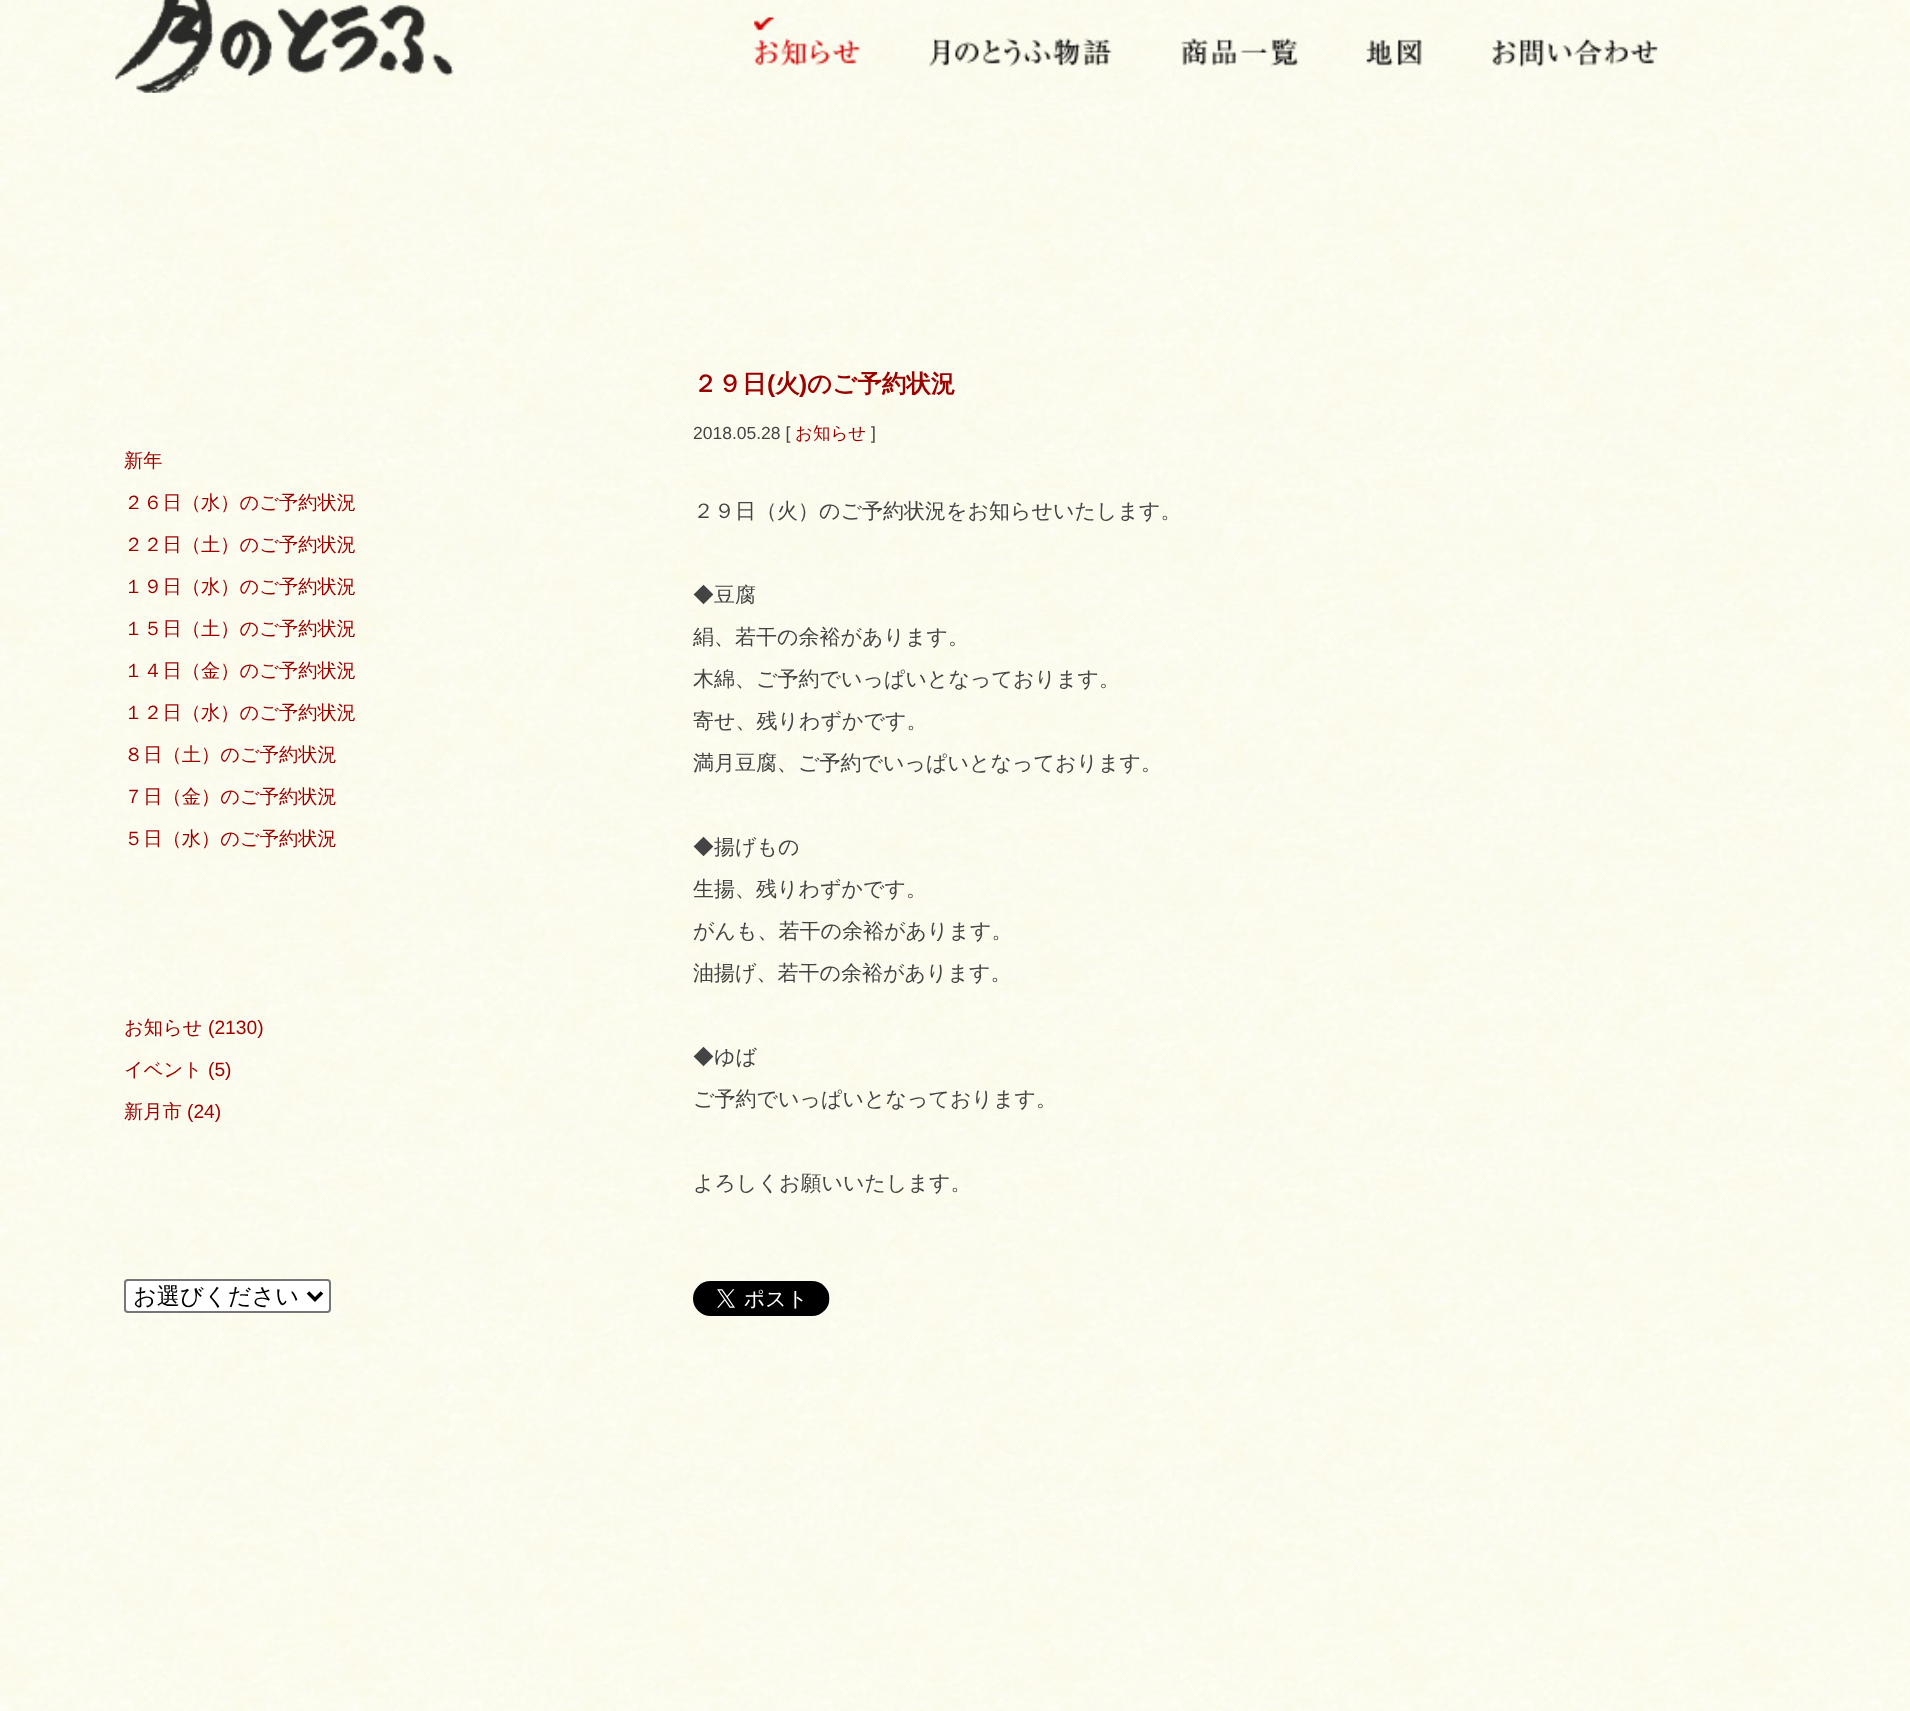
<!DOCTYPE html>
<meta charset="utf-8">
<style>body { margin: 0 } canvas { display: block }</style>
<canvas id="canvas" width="1910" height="1711"></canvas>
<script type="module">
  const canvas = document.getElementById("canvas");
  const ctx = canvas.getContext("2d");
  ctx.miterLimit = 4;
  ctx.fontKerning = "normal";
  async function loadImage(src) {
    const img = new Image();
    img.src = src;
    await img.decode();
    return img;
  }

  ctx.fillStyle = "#ffffff";
  ctx.fillRect(0, 0, 1910, 1711);
  ctx.drawImage(await loadImage("img1.png"), 0, 0, 1910, 1711);
  ctx.drawImage(await loadImage("img2.png"), 115, 0, 339, 93);
  ctx.drawImage(await loadImage("img3.png"), 754, 17, 106, 50);
  ctx.drawImage(await loadImage("img4.png"), 929, 18, 183, 49);
  ctx.drawImage(await loadImage("img5.png"), 1181, 18, 118, 49);
  ctx.drawImage(await loadImage("img6.png"), 1366, 18, 57, 48);
  ctx.drawImage(await loadImage("img7.png"), 1492, 17, 166, 50);
  ctx.font = "500 19.25px WenQuanYi Zen Hei";
  ctx.fillStyle = "#990000";
  ctx.fillText("新年", 124, 467);
  ctx.fillText("２６日（水）のご予約状況", 124, 509);
  ctx.fillText("２２日（土）のご予約状況", 124, 551);
  ctx.fillText("１９日（水）のご予約状況", 124, 593);
  ctx.fillText("１５日（土）のご予約状況", 124, 635);
  ctx.fillText("１４日（金）のご予約状況", 124, 677);
  ctx.fillText("１２日（水）のご予約状況", 124, 719);
  ctx.fillText("８日（土）のご予約状況", 124, 761);
  ctx.fillText("７日（金）のご予約状況", 124, 803);
  ctx.fillText("５日（水）のご予約状況", 124, 845);
  ctx.fillText("お知らせ", 124, 1034);
  ctx.font = "19.25px Liberation Sans";
  ctx.fillText("(2130)", 208, 1034);
  ctx.font = "500 19.25px WenQuanYi Zen Hei";
  ctx.fillText("イベント", 124, 1076);
  ctx.font = "19.25px Liberation Sans";
  ctx.fillText("(5)", 208, 1076);
  ctx.font = "500 19.25px WenQuanYi Zen Hei";
  ctx.fillText("新月市", 124, 1118);
  ctx.font = "19.25px Liberation Sans";
  ctx.fillText("(24)", 187, 1118);
  ctx.fillStyle = "#ffffff";
  ctx.beginPath();
  ctx.roundRect(125, 1280, 205, 32, 3);
  ctx.fill();
  ctx.strokeStyle = "#767676";
  ctx.lineWidth = 2;
  ctx.stroke();
  ctx.beginPath();
  ctx.moveTo(308, 1292.5);
  ctx.lineTo(315, 1299.5);
  ctx.lineTo(322, 1292.5);
  ctx.strokeStyle = "#000000";
  ctx.lineWidth = 3.5;
  ctx.stroke();
  ctx.font = "500 23.25px WenQuanYi Zen Hei";
  ctx.fillStyle = "#000000";
  ctx.fillText("お選びください", 133, 1304);
  ctx.font = "bold 24.5px WenQuanYi Zen Hei";
  ctx.fillStyle = "#990000";
  ctx.fillText("２９日", 693, 392);
  ctx.font = "bold 24.5px Liberation Sans";
  ctx.fillText("(", 767, 392);
  ctx.font = "bold 24.5px WenQuanYi Zen Hei";
  ctx.fillText("火", 775, 392);
  ctx.font = "bold 24.5px Liberation Sans";
  ctx.fillText(")", 799, 392);
  ctx.font = "bold 24.5px WenQuanYi Zen Hei";
  ctx.fillText("のご予約状況", 807, 392);
  ctx.font = "17.5px Liberation Sans";
  ctx.fillStyle = "#444444";
  ctx.fillText("2018.05.28 [", 693, 439);
  ctx.font = "500 17.5px WenQuanYi Zen Hei";
  ctx.fillStyle = "#990000";
  ctx.fillText("お知らせ", 795, 439);
  ctx.font = "17.5px Liberation Sans";
  ctx.fillStyle = "#444444";
  ctx.fillText("]", 871, 439);
  ctx.font = "500 21px WenQuanYi Zen Hei";
  ctx.fillText("２９日（火）のご予約状況をお知らせいたします。", 693, 518);
  ctx.fillText("◆豆腐", 693, 602);
  ctx.fillText("絹、若干の余裕があります。", 693, 644);
  ctx.fillText("木綿、ご予約でいっぱいとなっております。", 693, 686);
  ctx.fillText("寄せ、残りわずかです。", 693, 728);
  ctx.fillText("満月豆腐、ご予約でいっぱいとなっております。", 693, 770);
  ctx.fillText("◆揚げもの", 693, 854);
  ctx.fillText("生揚、残りわずかです。", 693, 896);
  ctx.fillText("がんも、若干の余裕があります。", 693, 938);
  ctx.fillText("油揚げ、若干の余裕があります。", 693, 980);
  ctx.fillText("◆ゆば", 693, 1064);
  ctx.fillText("ご予約でいっぱいとなっております。", 693, 1106);
  ctx.fillText("よろしくお願いいたします。", 693, 1190);
  ctx.drawImage(await loadImage("img8.png"), 693, 1281, 137, 35);
</script>
